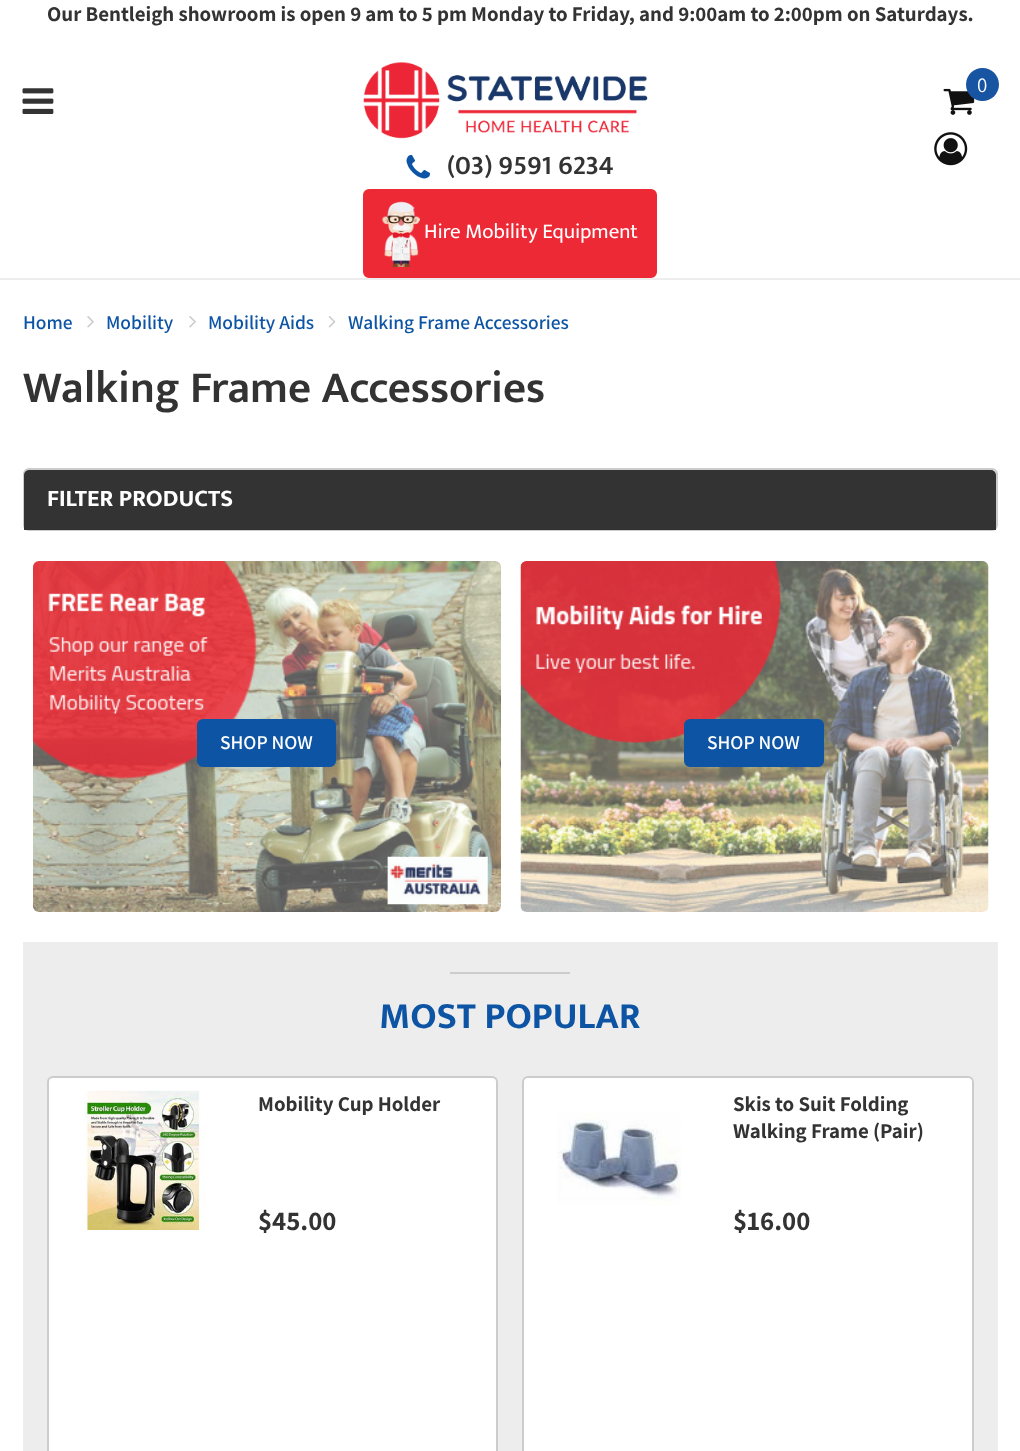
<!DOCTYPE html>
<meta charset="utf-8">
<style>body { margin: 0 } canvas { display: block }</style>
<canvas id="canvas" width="1020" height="1451"></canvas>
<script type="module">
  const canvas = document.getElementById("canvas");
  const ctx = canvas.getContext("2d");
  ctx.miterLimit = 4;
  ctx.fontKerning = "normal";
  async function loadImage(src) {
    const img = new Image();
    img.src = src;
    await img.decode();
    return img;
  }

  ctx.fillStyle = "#ffffff";
  ctx.fillRect(0, 0, 1020, 1451);
  ctx.font = "bold 21px Assistant";
  ctx.fillStyle = "#333333";
  ctx.fillText("Our Bentleigh showroom is open 9 am to 5 pm Monday to Friday, and 9:00am to 2:00pm on Saturdays.", 47, 21);
  ctx.drawImage(await loadImage("img1.png"), 363, 62, 285, 77);
  ctx.drawImage(await loadImage("img2.png"), 943, 88, 32, 27);
  ctx.fillStyle = "#1755a3";
  ctx.beginPath();
  ctx.arc(982.5, 84.5, 16.5, 0, Math.PI * 2);
  ctx.fill();
  ctx.font = "21px Assistant";
  ctx.fillStyle = "#ffffff";
  ctx.fillText("0", 977, 92);
  ctx.drawImage(await loadImage("img3.png"), 22, 88, 32, 26);
  ctx.drawImage(await loadImage("img4.png"), 934, 132, 34, 34);
  ctx.drawImage(await loadImage("img5.png"), 406, 154, 25, 25);
  ctx.font = "600 27px Mukta Vaani";
  ctx.fillStyle = "#333333";
  ctx.fillText("(03) 9591 6234", 447, 174);
  ctx.fillStyle = "#ee2936";
  ctx.beginPath();
  ctx.roundRect(364, 190, 292, 87, 5);
  ctx.fill();
  ctx.strokeStyle = "#ee2936";
  ctx.lineWidth = 2;
  ctx.stroke();
  ctx.drawImage(await loadImage("img6.png"), 382, 201, 38, 66);
  ctx.font = "21px Mukta Vaani";
  ctx.fillStyle = "#ffffff";
  ctx.fillText("Hire Mobility Equipment", 424, 238);
  ctx.fillStyle = "#ededed";
  ctx.fillRect(0, 278, 1020, 2);
  ctx.font = "600 19.5px Assistant";
  ctx.fillStyle = "#0d55a4";
  ctx.fillText("Home", 23, 329);
  ctx.drawImage(await loadImage("img7.png"), 87, 316, 7, 12);
  ctx.fillText("Mobility", 106, 329);
  ctx.drawImage(await loadImage("img7.png"), 189, 316, 7, 12);
  ctx.fillText("Mobility Aids", 208, 329);
  ctx.drawImage(await loadImage("img8.png"), 328, 316, 8, 12);
  ctx.fillText("Walking Frame Accessories", 348, 329);
  ctx.font = "600 45px Mukta Vaani";
  ctx.fillStyle = "#333333";
  ctx.fillText("Walking Frame Accessories", 23, 402);
  ctx.beginPath();
  ctx.roundRect(24, 469, 973, 61, 5);
  ctx.strokeStyle = "#cccccc";
  ctx.stroke();
  ctx.beginPath();
  ctx.roundRect(24, 470, 972, 60, [5, 5, 0, 0]);
  ctx.fill();
  ctx.font = "bold 24px Mukta Vaani";
  ctx.fillStyle = "#ffffff";
  ctx.fillText("FILTER PRODUCTS", 47, 506);
  ctx.drawImage(await loadImage("img9.png"), 33, 561, 468, 351);
  ctx.fillStyle = "#0d55a4";
  ctx.beginPath();
  ctx.roundRect(198, 720, 137, 46, 5);
  ctx.fill();
  ctx.strokeStyle = "#0d55a4";
  ctx.stroke();
  ctx.font = "600 19.5px Assistant";
  ctx.fillStyle = "#ffffff";
  ctx.fillText("SHOP NOW", 220, 749);
  ctx.drawImage(await loadImage("img10.png"), 520, 561, 469, 351);
  ctx.fillStyle = "#0d55a4";
  ctx.beginPath();
  ctx.roundRect(685, 720, 138, 46, 5);
  ctx.fill();
  ctx.stroke();
  ctx.fillStyle = "#ffffff";
  ctx.fillText("SHOP NOW", 707, 749);
  ctx.fillStyle = "#ededed";
  ctx.fillRect(23, 942, 975, 509);
  ctx.fillStyle = "#cccccc";
  ctx.fillRect(450, 972, 120, 2);
  ctx.font = "bold 37.5px Mukta Vaani";
  ctx.fillStyle = "#0d55a4";
  ctx.fillText("MOST POPULAR", 379, 1028);
  ctx.fillStyle = "#ffffff";
  ctx.beginPath();
  ctx.roundRect(48, 1077, 449, 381, 5);
  ctx.fill();
  ctx.strokeStyle = "#cccccc";
  ctx.stroke();
  ctx.drawImage(await loadImage("img11.png"), 84, 1090, 122, 140);
  ctx.font = "bold 21px Assistant";
  ctx.fillStyle = "#333333";
  ctx.fillText("Mobility Cup Holder", 258, 1111);
  ctx.font = "bold 27px Assistant";
  ctx.fillText("$45.00", 258, 1230);
  ctx.fillStyle = "#ffffff";
  ctx.beginPath();
  ctx.roundRect(523, 1077, 450, 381, 5);
  ctx.fill();
  ctx.stroke();
  ctx.drawImage(await loadImage("img12.png"), 557, 1112, 124, 94);
  ctx.font = "bold 21px Assistant";
  ctx.fillStyle = "#333333";
  ctx.fillText("Skis to Suit Folding", 733, 1111);
  ctx.fillText("Walking Frame (Pair)", 733, 1138);
  ctx.font = "bold 27px Assistant";
  ctx.fillText("$16.00", 733, 1230);
</script>
